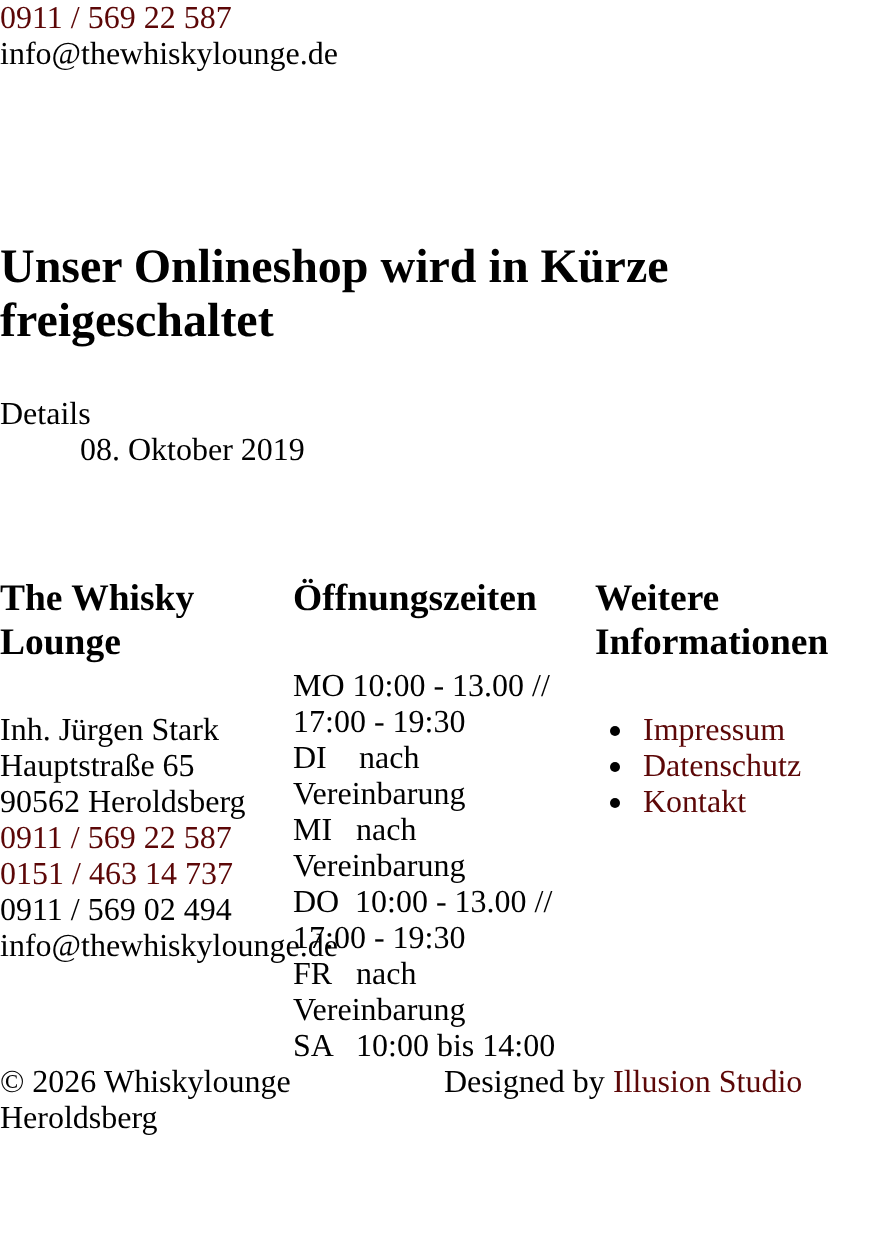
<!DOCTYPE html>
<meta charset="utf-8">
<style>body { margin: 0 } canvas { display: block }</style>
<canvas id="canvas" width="888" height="1244"></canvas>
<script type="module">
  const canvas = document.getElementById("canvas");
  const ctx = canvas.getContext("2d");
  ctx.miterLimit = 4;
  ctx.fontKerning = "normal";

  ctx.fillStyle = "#ffffff";
  ctx.fillRect(0, 0, 888, 1244);
  ctx.font = "32px Liberation Serif";
  ctx.fillStyle = "#5c0707";
  ctx.fillText("0911 / 569 22 587", 0, 28);
  ctx.fillStyle = "#000000";
  ctx.fillText("info@thewhiskylounge.de", 0, 64);
  ctx.font = "bold 48px Liberation Serif";
  ctx.fillText("Unser Onlineshop wird in Kürze", 0, 282);
  ctx.fillText("freigeschaltet", 0, 336);
  ctx.font = "32px Liberation Serif";
  ctx.fillText("Details", 0, 424);
  ctx.fillText("08. Oktober 2019", 80, 460);
  ctx.font = "bold 37.5px Liberation Serif";
  ctx.fillText("The Whisky", 0, 610);
  ctx.fillText("Lounge", 0, 654);
  ctx.font = "32px Liberation Serif";
  ctx.fillText("Inh. Jürgen Stark", 0, 740);
  ctx.fillText("Hauptstraße 65", 0, 776);
  ctx.fillText("90562 Heroldsberg", 0, 812);
  ctx.fillStyle = "#5c0707";
  ctx.fillText("0911 / 569 22 587", 0, 848);
  ctx.fillText("0151 / 463 14 737", 0, 884);
  ctx.fillStyle = "#000000";
  ctx.fillText("0911 / 569 02 494", 0, 920);
  ctx.fillText("info@thewhiskylounge.de", 0, 956);
  ctx.font = "bold 37.5px Liberation Serif";
  ctx.fillText("Öffnungszeiten", 293, 610);
  ctx.font = "32px Liberation Serif";
  ctx.fillText("MO 10:00 - 13.00 //", 293, 696);
  ctx.fillText("17:00 - 19:30", 293, 732);
  ctx.fillText("DI", 293, 768);
  ctx.fillText("nach", 359, 768);
  ctx.fillText("Vereinbarung", 293, 804);
  ctx.fillText("MI", 293, 840);
  ctx.fillText("nach", 356, 840);
  ctx.fillText("Vereinbarung", 293, 876);
  ctx.fillText("DO", 293, 912);
  ctx.fillText("10:00 - 13.00 //", 355, 912);
  ctx.fillText("17:00 - 19:30", 293, 948);
  ctx.fillText("FR", 293, 984);
  ctx.fillText("nach", 356, 984);
  ctx.fillText("Vereinbarung", 293, 1020);
  ctx.fillText("SA", 293, 1056);
  ctx.fillText("10:00 bis 14:00", 356, 1056);
  ctx.font = "bold 37.5px Liberation Serif";
  ctx.fillText("Weitere", 595, 610);
  ctx.fillText("Informationen", 595, 654);
  ctx.beginPath();
  ctx.arc(615, 731, 5, 0, Math.PI * 2);
  ctx.fill();
  ctx.font = "32px Liberation Serif";
  ctx.fillStyle = "#5c0707";
  ctx.fillText("Impressum", 643, 740);
  ctx.fillStyle = "#000000";
  ctx.beginPath();
  ctx.arc(615, 767, 5, 0, Math.PI * 2);
  ctx.fill();
  ctx.fillStyle = "#5c0707";
  ctx.fillText("Datenschutz", 643, 776);
  ctx.fillStyle = "#000000";
  ctx.beginPath();
  ctx.arc(615, 803, 5, 0, Math.PI * 2);
  ctx.fill();
  ctx.fillStyle = "#5c0707";
  ctx.fillText("Kontakt", 643, 812);
  ctx.fillStyle = "#000000";
  ctx.fillText("© 2026", 0, 1092);
  ctx.fillText("Whiskylounge", 104, 1092);
  ctx.fillText("Heroldsberg", 0, 1128);
  ctx.fillText("Designed by", 444, 1092);
  ctx.fillStyle = "#5c0707";
  ctx.fillText("Illusion Studio", 613, 1092);
</script>
